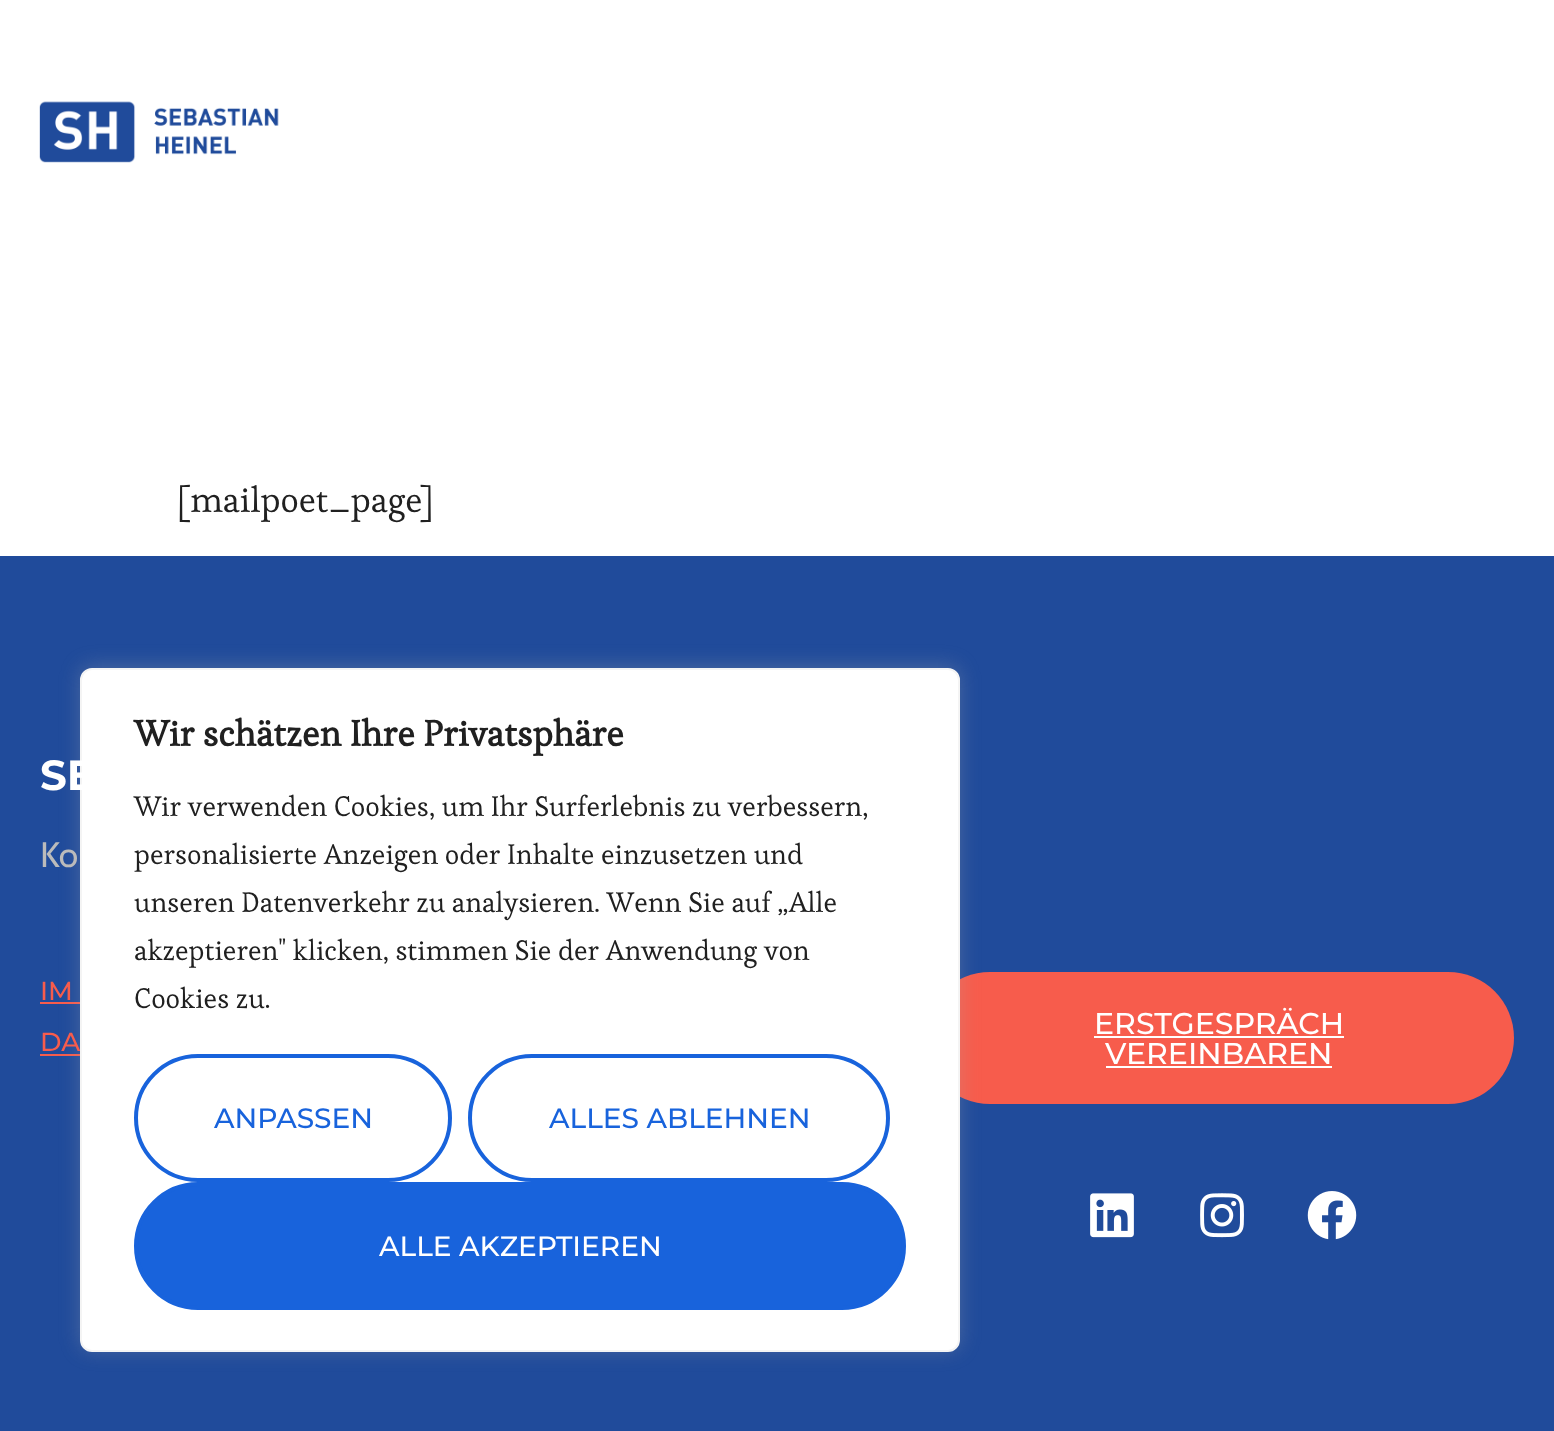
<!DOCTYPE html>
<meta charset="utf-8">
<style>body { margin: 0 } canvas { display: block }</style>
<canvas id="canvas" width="1554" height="1431"></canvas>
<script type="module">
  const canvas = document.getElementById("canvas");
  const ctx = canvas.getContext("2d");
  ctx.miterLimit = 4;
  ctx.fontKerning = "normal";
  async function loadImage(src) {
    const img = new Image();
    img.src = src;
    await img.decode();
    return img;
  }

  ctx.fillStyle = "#ffffff";
  ctx.fillRect(0, 0, 1554, 1431);
  ctx.drawImage(await loadImage("img1.png"), 39, 101, 240, 62);
  ctx.font = "35.25px Esteban";
  ctx.fillStyle = "#202020";
  ctx.fillText("[mailpoet_page]", 177, 512);
  ctx.fillStyle = "#204b9b";
  ctx.fillRect(0, 556, 1554, 875);
  ctx.fillStyle = "#f75c4c";
  ctx.fillRect(40, 1002, 40, 2);
  ctx.fillRect(40, 1054, 40, 2);
  ctx.beginPath();
  ctx.roundRect(924, 972, 590, 132, 66);
  ctx.fill();
  ctx.fillStyle = "rgba(172, 171, 171, 0.3)";
  ctx.filter = "blur(10px)";
  ctx.beginPath();
  ctx.roundRect(80, 666, 880, 684, 12);
  ctx.fill();
  ctx.filter = "none";
  ctx.font = "500 26px Montserrat";
  ctx.fillStyle = "#f75c4c";
  ctx.fillText("DA", 40, 1051);
  ctx.fillStyle = "#ffffff";
  ctx.beginPath();
  ctx.roundRect(81, 669, 878, 682, 11);
  ctx.fill();
  ctx.strokeStyle = "#f4f4f4";
  ctx.lineWidth = 2;
  ctx.stroke();
  ctx.font = "bold 36px Esteban";
  ctx.fillStyle = "#202020";
  ctx.fillText("Wir schätzen Ihre Privatsphäre", 134, 746);
  ctx.font = "28px Esteban";
  ctx.fillText("Wir verwenden Cookies, um Ihr Surferlebnis zu verbessern,", 134, 816);
  ctx.fillText("personalisierte Anzeigen oder Inhalte einzusetzen und", 134, 864);
  ctx.fillText("unseren Datenverkehr zu analysieren. Wenn Sie auf „Alle", 134, 912);
  ctx.fillText("akzeptieren\" klicken, stimmen Sie der Anwendung von", 134, 960);
  ctx.fillText("Cookies zu.", 134, 1008);
  ctx.beginPath();
  ctx.roundRect(136, 1056, 314, 124, 62);
  ctx.strokeStyle = "#1863dc";
  ctx.lineWidth = 4;
  ctx.stroke();
  ctx.font = "500 28px Montserrat";
  ctx.fillStyle = "#1863dc";
  ctx.fillText("ANPASSEN", 214, 1128);
  ctx.beginPath();
  ctx.roundRect(470, 1056, 418, 124, 62);
  ctx.stroke();
  ctx.fillText("ALLES ABLEHNEN", 549, 1128);
  ctx.beginPath();
  ctx.roundRect(136, 1184, 768, 124, 62);
  ctx.fill();
  ctx.stroke();
  ctx.fillStyle = "#ffffff";
  ctx.fillText("ALLE AKZEPTIEREN", 379, 1256);
  ctx.font = "bold 42px Montserrat";
  ctx.fillText("SE", 40, 790);
  ctx.font = "35.25px Cabin";
  ctx.fillStyle = "#bbbbbb";
  ctx.fillText("Ko", 40, 867);
  ctx.font = "500 26px Montserrat";
  ctx.fillStyle = "#f75c4c";
  ctx.fillText("IM", 40, 1000);
  ctx.font = "500 30px Montserrat";
  ctx.fillStyle = "#ffffff";
  ctx.fillText("ERSTGESPRÄCH", 1094, 1034);
  ctx.fillRect(1094, 1036, 250, 2);
  ctx.fillText("VEREINBAREN", 1105, 1064);
  ctx.fillRect(1106, 1066, 226, 2);
  ctx.drawImage(await loadImage("img2.png"), 1090, 1193, 44, 45);
  ctx.drawImage(await loadImage("img3.png"), 1200, 1193, 44, 45);
  ctx.drawImage(await loadImage("img4.png"), 1307, 1191, 50, 49);
</script>
